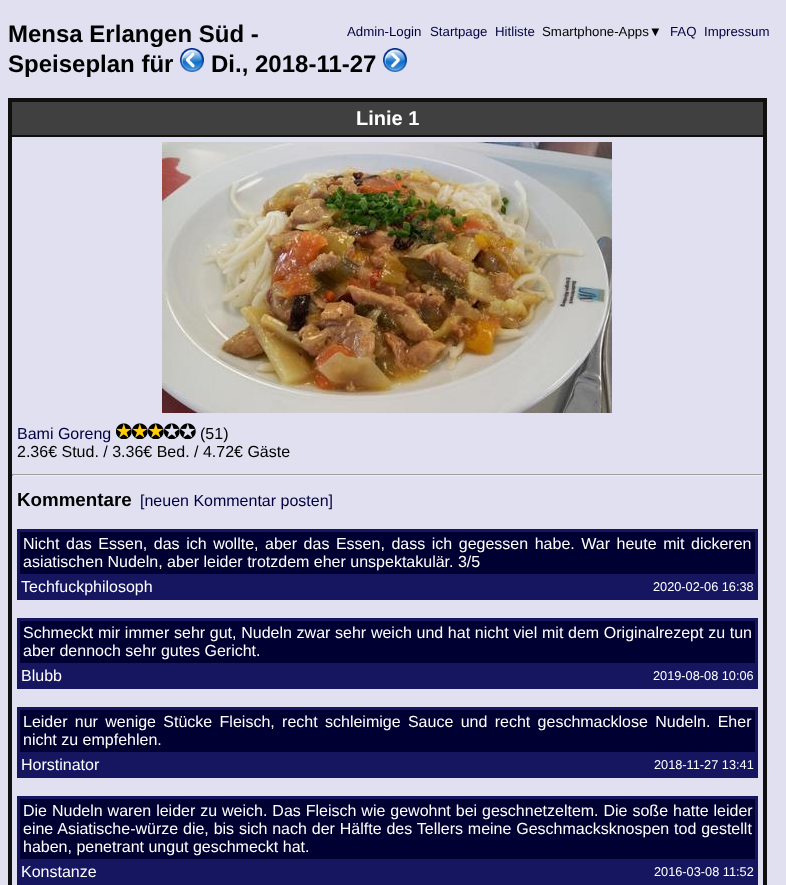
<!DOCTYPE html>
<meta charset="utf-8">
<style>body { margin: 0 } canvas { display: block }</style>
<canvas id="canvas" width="786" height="885"></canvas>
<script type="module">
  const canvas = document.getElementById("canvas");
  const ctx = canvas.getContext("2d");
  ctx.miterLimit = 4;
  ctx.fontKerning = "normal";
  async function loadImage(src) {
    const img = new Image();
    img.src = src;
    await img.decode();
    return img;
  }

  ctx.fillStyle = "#e0e0f0";
  ctx.fillRect(0, 0, 786, 885);
  ctx.font = "bold 24px Liberation Sans";
  ctx.fillStyle = "#000000";
  ctx.fillText("Mensa Erlangen Süd -", 8, 42);
  ctx.fillText("Speiseplan für", 8, 72);
  ctx.drawImage(await loadImage("img1.png"), 180, 48, 24, 24);
  ctx.fillText("Di., 2018-11-27", 211, 72);
  ctx.drawImage(await loadImage("img2.png"), 383, 48, 24, 24);
  ctx.font = "13.25px Liberation Sans";
  ctx.fillStyle = "#000040";
  ctx.fillText("Admin-Login", 347, 36);
  ctx.fillText("Startpage", 430, 36);
  ctx.fillText("Hitliste", 495, 36);
  ctx.fillStyle = "#000000";
  ctx.fillText("Smartphone-Apps▼", 542, 36);
  ctx.fillStyle = "#000040";
  ctx.fillText("FAQ", 670, 36);
  ctx.fillText("Impressum", 704, 36);
  ctx.fillStyle = "#101010";
  ctx.fillRect(8, 98, 4, 787);
  ctx.fillRect(12, 98, 755, 4);
  ctx.fillRect(763, 98, 4, 787);
  ctx.fillStyle = "#404040";
  ctx.fillRect(12, 102, 751, 33);
  ctx.fillStyle = "#101010";
  ctx.fillRect(12, 135, 751, 2);
  ctx.font = "bold 20px Liberation Sans";
  ctx.fillStyle = "#ffffff";
  ctx.fillText("Linie 1", 356, 125);
  ctx.drawImage(await loadImage("img3.png"), 162, 142, 450, 271);
  ctx.font = "16px Liberation Sans";
  ctx.fillStyle = "#000040";
  ctx.fillText("Bami Goreng", 17, 439);
  ctx.drawImage(await loadImage("img4.png"), 116, 423, 16, 16);
  ctx.drawImage(await loadImage("img4.png"), 132, 423, 16, 16);
  ctx.drawImage(await loadImage("img4.png"), 148, 423, 16, 16);
  ctx.drawImage(await loadImage("img5.png"), 164, 423, 16, 16);
  ctx.drawImage(await loadImage("img5.png"), 180, 423, 16, 16);
  ctx.fillStyle = "#000000";
  ctx.fillText("(51)", 200, 439);
  ctx.fillText("2.36€ Stud. / 3.36€ Bed. / 4.72€ Gäste", 17, 457);
  ctx.fillStyle = "#9f9f9f";
  ctx.fillRect(12, 474, 751, 1);
  ctx.fillStyle = "#eeeeee";
  ctx.fillRect(762, 474, 1, 2);
  ctx.fillRect(12, 475, 751, 1);
  ctx.fillStyle = "#9f9f9f";
  ctx.fillRect(12, 474, 1, 2);
  ctx.font = "bold 18.75px Liberation Sans";
  ctx.fillStyle = "#000000";
  ctx.fillText("Kommentare", 17, 506);
  ctx.font = "16px Liberation Sans";
  ctx.fillStyle = "#000040";
  ctx.fillText("[neuen Kommentar posten]", 140, 506);
  ctx.fillStyle = "#000032";
  ctx.fillRect(20, 532, 735, 42);
  ctx.fillStyle = "#151560";
  ctx.fillRect(17, 529, 741, 3);
  ctx.fillRect(755, 529, 3, 71);
  ctx.fillRect(17, 597, 741, 3);
  ctx.fillRect(17, 529, 3, 71);
  ctx.wordSpacing = "2.1px";
  ctx.fillStyle = "#ffffff";
  ctx.fillText("Nicht das Essen, das ich wollte, aber das Essen, dass ich gegessen habe. War heute mit dickeren", 23, 549);
  ctx.wordSpacing = "0px";
  ctx.fillText("asiatischen Nudeln, aber leider trotzdem eher unspektakulär. 3/5", 23, 567);
  ctx.fillStyle = "#151560";
  ctx.fillRect(20, 577, 735, 20);
  ctx.fillRect(17, 574, 741, 3);
  ctx.fillStyle = "#ffffff";
  ctx.fillText("Techfuckphilosoph", 21, 592);
  ctx.font = "12.75px Liberation Sans";
  ctx.fillText("2020-02-06 16:38", 653, 591);
  ctx.fillStyle = "#000032";
  ctx.fillRect(20, 621, 735, 42);
  ctx.fillStyle = "#151560";
  ctx.fillRect(17, 618, 741, 3);
  ctx.fillRect(755, 618, 3, 71);
  ctx.fillRect(17, 686, 741, 3);
  ctx.fillRect(17, 618, 3, 71);
  ctx.wordSpacing = "0.25px";
  ctx.font = "16px Liberation Sans";
  ctx.fillStyle = "#ffffff";
  ctx.fillText("Schmeckt mir immer sehr gut, Nudeln zwar sehr weich und hat nicht viel mit dem Originalrezept zu tun", 23, 638);
  ctx.wordSpacing = "0px";
  ctx.fillText("aber dennoch sehr gutes Gericht.", 23, 656);
  ctx.fillStyle = "#151560";
  ctx.fillRect(20, 666, 735, 20);
  ctx.fillRect(17, 663, 741, 3);
  ctx.fillStyle = "#ffffff";
  ctx.fillText("Blubb", 21, 681);
  ctx.font = "12.75px Liberation Sans";
  ctx.fillText("2019-08-08 10:06", 653, 680);
  ctx.fillStyle = "#000032";
  ctx.fillRect(20, 710, 735, 42);
  ctx.fillStyle = "#151560";
  ctx.fillRect(17, 707, 741, 3);
  ctx.fillRect(755, 707, 3, 71);
  ctx.fillRect(17, 775, 741, 3);
  ctx.fillRect(17, 707, 3, 71);
  ctx.wordSpacing = "2.9px";
  ctx.font = "16px Liberation Sans";
  ctx.fillStyle = "#ffffff";
  ctx.fillText("Leider nur wenige Stücke Fleisch, recht schleimige Sauce und recht geschmacklose Nudeln. Eher", 23, 727);
  ctx.wordSpacing = "0px";
  ctx.fillText("nicht zu empfehlen.", 23, 745);
  ctx.fillStyle = "#151560";
  ctx.fillRect(20, 755, 735, 20);
  ctx.fillRect(17, 752, 741, 3);
  ctx.fillStyle = "#ffffff";
  ctx.fillText("Horstinator", 21, 770);
  ctx.font = "12.75px Liberation Sans";
  ctx.fillText("2018-11-27 13:41", 654, 769);
  ctx.fillStyle = "#000032";
  ctx.fillRect(20, 799, 735, 60);
  ctx.fillStyle = "#151560";
  ctx.fillRect(17, 796, 741, 3);
  ctx.fillRect(755, 796, 3, 89);
  ctx.fillRect(17, 882, 741, 3);
  ctx.fillRect(17, 796, 3, 89);
  ctx.wordSpacing = "0.5px";
  ctx.font = "16px Liberation Sans";
  ctx.fillStyle = "#ffffff";
  ctx.fillText("Die Nudeln waren leider zu weich. Das Fleisch wie gewohnt bei geschnetzeltem. Die soße hatte leider", 23, 816);
  ctx.wordSpacing = "0.4px";
  ctx.fillText("eine Asiatische-würze die, bis sich nach der Hälfte des Tellers meine Geschmacksknospen tod gestellt", 23, 834);
  ctx.wordSpacing = "0px";
  ctx.fillText("haben, penetrant ungut geschmeckt hat.", 23, 852);
  ctx.fillStyle = "#151560";
  ctx.fillRect(20, 862, 735, 20);
  ctx.fillRect(17, 859, 741, 3);
  ctx.fillStyle = "#ffffff";
  ctx.fillText("Konstanze", 21, 877);
  ctx.font = "12.75px Liberation Sans";
  ctx.fillText("2016-03-08 11:52", 654, 876);
</script>
